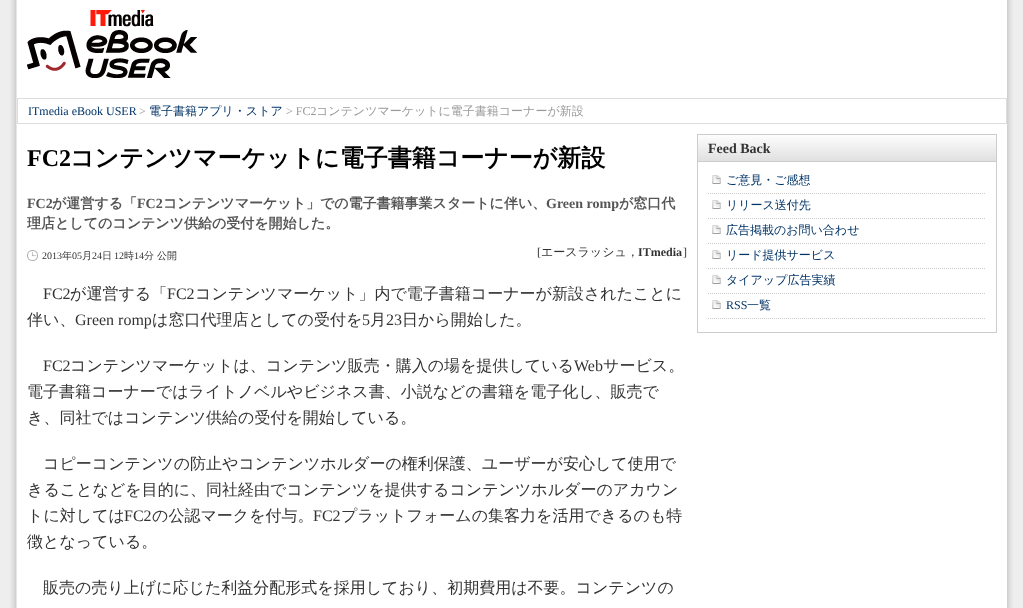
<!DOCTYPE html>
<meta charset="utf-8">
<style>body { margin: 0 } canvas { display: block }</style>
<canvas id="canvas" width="1023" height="608"></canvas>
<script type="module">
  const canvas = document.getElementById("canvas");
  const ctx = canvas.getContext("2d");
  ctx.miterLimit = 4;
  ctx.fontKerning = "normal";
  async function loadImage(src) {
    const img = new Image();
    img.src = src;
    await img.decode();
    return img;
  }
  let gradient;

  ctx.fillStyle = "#eeeeee";
  ctx.fillRect(0, 0, 1023, 608);
  ctx.drawImage(await loadImage("img1.png"), 10, 0, 1003, 608);
  ctx.fillStyle = "#ffffff";
  ctx.fillRect(1006, 0, 1, 608);
  ctx.drawImage(await loadImage("img2.png"), 27, 10, 170, 68);
  ctx.strokeStyle = "#dddddd";
  ctx.strokeRect(17.5, 98.5, 989, 25);
  ctx.font = "12px Liberation Serif";
  ctx.fillStyle = "#003366";
  ctx.fillText("ITmedia eBook USER", 28, 115);
  ctx.fillStyle = "#999999";
  ctx.fillText(">", 139, 115);
  ctx.font = "500 12px WenQuanYi Zen Hei";
  ctx.fillStyle = "#003366";
  ctx.fillText("電子書籍アプリ・ストア", 149, 115);
  ctx.font = "12px Liberation Serif";
  ctx.fillStyle = "#999999";
  ctx.fillText("> FC2", 286, 115);
  ctx.font = "500 12px WenQuanYi Zen Hei";
  ctx.fillText("コンテンツマーケットに電子書籍コーナーが新設", 316, 115);
  ctx.font = "bold 24px Liberation Serif";
  ctx.fillStyle = "#000000";
  ctx.fillText("FC2", 27, 166);
  ctx.font = "bold 24px WenQuanYi Zen Hei";
  ctx.fillText("コンテンツマーケットに電子書籍コーナーが新設", 70, 166);
  ctx.font = "bold 14px Liberation Serif";
  ctx.fillStyle = "#555555";
  ctx.fillText("FC2", 27, 208);
  ctx.font = "bold 14px WenQuanYi Zen Hei";
  ctx.fillText("が運営する「", 52, 208);
  ctx.font = "bold 14px Liberation Serif";
  ctx.fillText("FC2", 137, 208);
  ctx.font = "bold 14px WenQuanYi Zen Hei";
  ctx.fillText("コンテンツマーケット」での電子書籍事業スタートに伴い、", 163, 208);
  ctx.font = "bold 14px Liberation Serif";
  ctx.fillText("Green romp", 546, 208);
  ctx.font = "bold 14px WenQuanYi Zen Hei";
  ctx.fillText("が窓口代", 619, 208);
  ctx.fillText("理店としてのコンテンツ供給の受付を開始した。", 27, 228);
  ctx.drawImage(await loadImage("img3.png"), 27, 250, 11, 11);
  ctx.font = "10px Liberation Serif";
  ctx.fillStyle = "#333333";
  ctx.fillText("2013", 42, 259);
  ctx.font = "500 10px WenQuanYi Zen Hei";
  ctx.fillText("年", 62, 259);
  ctx.font = "10px Liberation Serif";
  ctx.fillText("05", 72, 259);
  ctx.font = "500 10px WenQuanYi Zen Hei";
  ctx.fillText("月", 82, 259);
  ctx.font = "10px Liberation Serif";
  ctx.fillText("24", 92, 259);
  ctx.font = "500 10px WenQuanYi Zen Hei";
  ctx.fillText("日", 102, 259);
  ctx.font = "10px Liberation Serif";
  ctx.fillText("12", 114, 259);
  ctx.font = "500 10px WenQuanYi Zen Hei";
  ctx.fillText("時", 124, 259);
  ctx.font = "10px Liberation Serif";
  ctx.fillText("14", 134, 259);
  ctx.font = "500 10px WenQuanYi Zen Hei";
  ctx.fillText("分 公開", 144, 259);
  ctx.font = "12px Liberation Serif";
  ctx.fillText("[", 537, 256);
  ctx.font = "500 12px WenQuanYi Zen Hei";
  ctx.fillText("エースラッシュ，", 541, 256);
  ctx.font = "bold 12px Liberation Serif";
  ctx.fillText("ITmedia", 638, 256);
  ctx.font = "12px Liberation Serif";
  ctx.fillText("]", 683, 256);
  ctx.font = "16px Liberation Serif";
  ctx.fillText("FC2", 43, 299);
  ctx.font = "500 16px WenQuanYi Zen Hei";
  ctx.fillText("が運営する「", 70, 299);
  ctx.font = "16px Liberation Serif";
  ctx.fillText("FC2", 167, 299);
  ctx.font = "500 16px WenQuanYi Zen Hei";
  ctx.fillText("コンテンツマーケット」内で電子書籍コーナーが新設されたことに", 195, 299);
  ctx.fillText("伴い、", 27, 325);
  ctx.font = "16px Liberation Serif";
  ctx.fillText("Green romp", 75, 325);
  ctx.font = "500 16px WenQuanYi Zen Hei";
  ctx.fillText("は窓口代理店としての受付を", 152, 325);
  ctx.font = "16px Liberation Serif";
  ctx.fillText("5", 362, 325);
  ctx.font = "500 16px WenQuanYi Zen Hei";
  ctx.fillText("月", 370, 325);
  ctx.font = "16px Liberation Serif";
  ctx.fillText("23", 386, 325);
  ctx.font = "500 16px WenQuanYi Zen Hei";
  ctx.fillText("日から開始した。", 402, 325);
  ctx.font = "16px Liberation Serif";
  ctx.fillText("FC2", 43, 371);
  ctx.font = "500 16px WenQuanYi Zen Hei";
  ctx.fillText("コンテンツマーケットは、コンテンツ販売・購入の場を提供している", 70, 371);
  ctx.font = "16px Liberation Serif";
  ctx.fillText("Web", 574, 371);
  ctx.font = "500 16px WenQuanYi Zen Hei";
  ctx.fillText("サービス。", 603, 371);
  ctx.fillText("電子書籍コーナーではライトノベルやビジネス書、小説などの書籍を電子化し、販売で", 27, 397);
  ctx.fillText("き、同社ではコンテンツ供給の受付を開始している。", 27, 423);
  ctx.fillText("コピーコンテンツの防止やコンテンツホルダーの権利保護、ユーザーが安心して使用で", 43, 469);
  ctx.fillText("きることなどを目的に、同社経由でコンテンツを提供するコンテンツホルダーのアカウン", 27, 495);
  ctx.fillText("トに対しては", 27, 521);
  ctx.font = "16px Liberation Serif";
  ctx.fillText("FC2", 124, 521);
  ctx.font = "500 16px WenQuanYi Zen Hei";
  ctx.fillText("の公認マークを付与。", 152, 521);
  ctx.font = "16px Liberation Serif";
  ctx.fillText("FC2", 313, 521);
  ctx.font = "500 16px WenQuanYi Zen Hei";
  ctx.fillText("プラットフォームの集客力を活用できるのも特", 341, 521);
  ctx.fillText("徴となっている。", 27, 547);
  ctx.fillText("販売の売り上げに応じた利益分配形式を採用しており、初期費用は不要。コンテンツの", 43, 593);
  ctx.strokeStyle = "#cccccc";
  ctx.strokeRect(697.5, 134.5, 299, 198);
  gradient = ctx.createLinearGradient(847, 135, 847, 161);
  gradient.addColorStop(0, "#fdfdfd");
  gradient.addColorStop(1, "#e0e0e0");
  ctx.fillStyle = gradient;
  ctx.fillRect(698, 135, 298, 26);
  ctx.fillStyle = "#cccccc";
  ctx.fillRect(698, 161, 298, 1);
  ctx.font = "bold 14px Liberation Serif";
  ctx.fillStyle = "#333333";
  ctx.fillText("Feed Back", 708, 153);
  ctx.drawImage(await loadImage("img4.png"), 712, 175, 9, 9);
  ctx.beginPath();
  ctx.moveTo(708, 193.5);
  ctx.lineTo(986, 193.5);
  ctx.setLineDash([1, 1]);
  ctx.stroke();
  ctx.font = "500 12px WenQuanYi Zen Hei";
  ctx.fillStyle = "#003366";
  ctx.fillText("ご意見・ご感想", 726, 184);
  ctx.drawImage(await loadImage("img4.png"), 712, 200, 9, 9);
  ctx.beginPath();
  ctx.moveTo(708, 218.5);
  ctx.lineTo(986, 218.5);
  ctx.stroke();
  ctx.fillText("リリース送付先", 726, 209);
  ctx.drawImage(await loadImage("img4.png"), 712, 225, 9, 9);
  ctx.beginPath();
  ctx.moveTo(708, 243.5);
  ctx.lineTo(986, 243.5);
  ctx.stroke();
  ctx.fillText("広告掲載のお問い合わせ", 726, 234);
  ctx.drawImage(await loadImage("img4.png"), 712, 250, 9, 9);
  ctx.beginPath();
  ctx.moveTo(708, 268.5);
  ctx.lineTo(986, 268.5);
  ctx.stroke();
  ctx.fillText("リード提供サービス", 726, 259);
  ctx.drawImage(await loadImage("img4.png"), 712, 275, 9, 9);
  ctx.beginPath();
  ctx.moveTo(708, 293.5);
  ctx.lineTo(986, 293.5);
  ctx.stroke();
  ctx.fillText("タイアップ広告実績", 726, 284);
  ctx.drawImage(await loadImage("img4.png"), 712, 300, 9, 9);
  ctx.beginPath();
  ctx.moveTo(708, 318.5);
  ctx.lineTo(986, 318.5);
  ctx.stroke();
  ctx.font = "12px Liberation Serif";
  ctx.fillText("RSS", 726, 309);
  ctx.font = "500 12px WenQuanYi Zen Hei";
  ctx.fillText("一覧", 747, 309);
</script>
